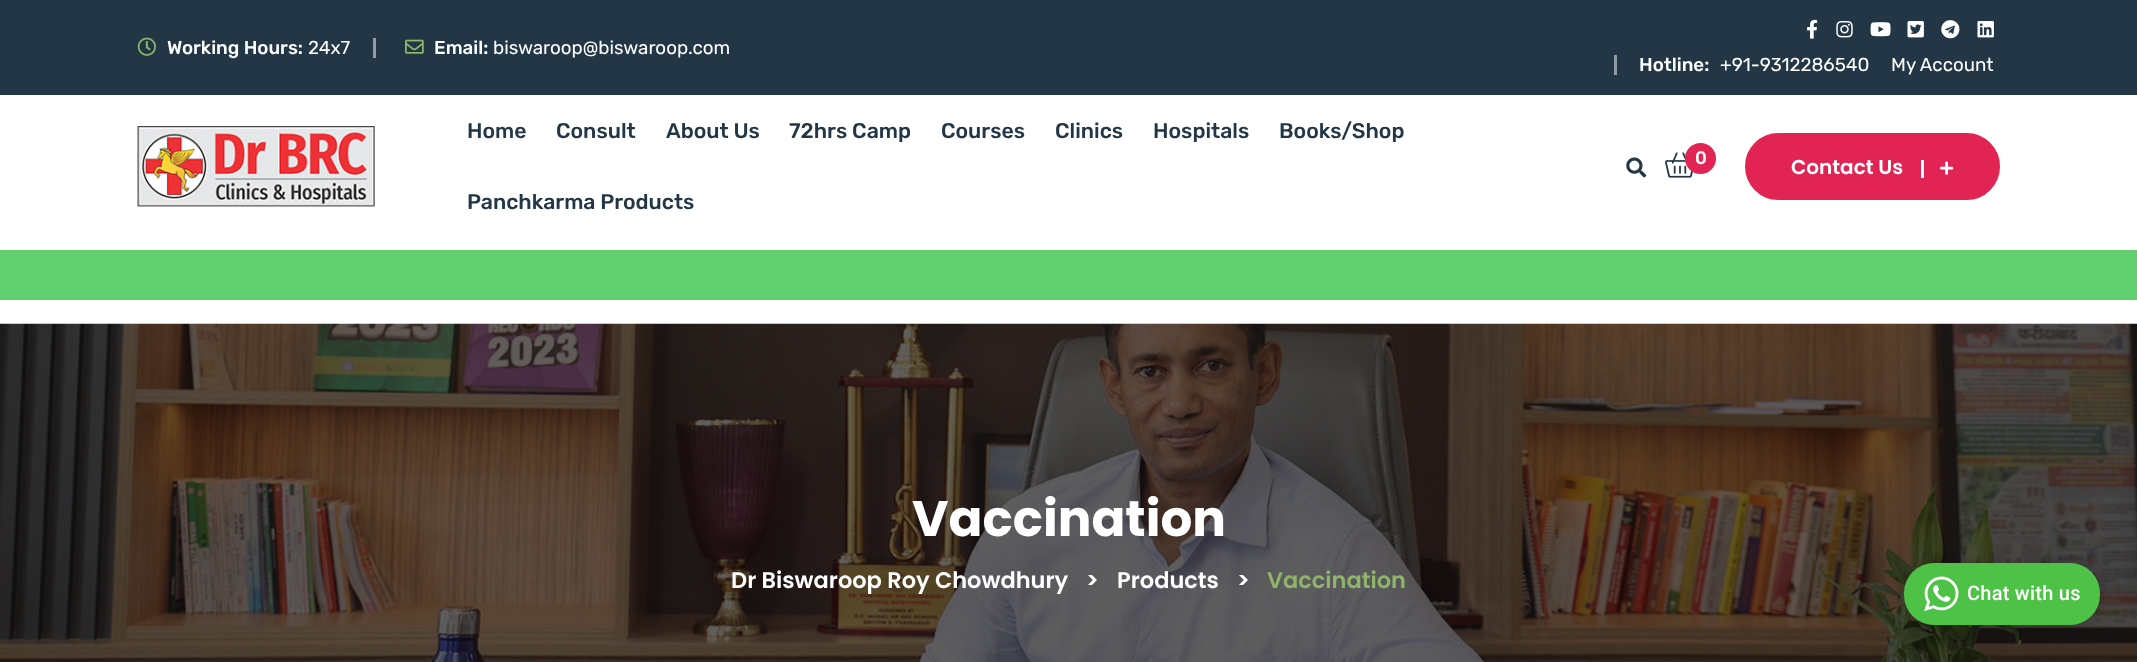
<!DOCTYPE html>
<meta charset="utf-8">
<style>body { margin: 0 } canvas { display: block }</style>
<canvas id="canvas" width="2137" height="662"></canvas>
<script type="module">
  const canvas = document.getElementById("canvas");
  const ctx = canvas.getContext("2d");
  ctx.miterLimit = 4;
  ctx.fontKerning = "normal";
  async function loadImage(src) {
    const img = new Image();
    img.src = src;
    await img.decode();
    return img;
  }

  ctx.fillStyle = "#ffffff";
  ctx.fillRect(0, 0, 2137, 662);
  ctx.fillStyle = "#223645";
  ctx.fillRect(0, 0, 2137, 95);
  ctx.drawImage(await loadImage("img1.png"), 137, 37, 19, 19);
  ctx.font = "500 18.75px Rubik";
  ctx.fillStyle = "#ffffff";
  ctx.fillText("Working Hours:", 167, 54);
  ctx.font = "18.75px Rubik";
  ctx.fillText("24x7", 308, 54);
  ctx.fillStyle = "#909ba2";
  ctx.fillRect(373, 38, 3, 20);
  ctx.drawImage(await loadImage("img2.png"), 405, 39, 19, 15);
  ctx.font = "500 18.75px Rubik";
  ctx.fillStyle = "#ffffff";
  ctx.fillText("Email:", 434, 54);
  ctx.font = "18.75px Rubik";
  ctx.fillText("biswaroop@biswaroop.com", 493, 54);
  ctx.drawImage(await loadImage("img3.png"), 1807, 19, 11, 20);
  ctx.drawImage(await loadImage("img4.png"), 1836, 21, 17, 17);
  ctx.drawImage(await loadImage("img5.png"), 1870, 22, 21, 15);
  ctx.drawImage(await loadImage("img6.png"), 1907, 21, 17, 17);
  ctx.drawImage(await loadImage("img7.png"), 1941, 20, 19, 19);
  ctx.drawImage(await loadImage("img8.png"), 1977, 21, 17, 17);
  ctx.fillStyle = "#909ba2";
  ctx.fillRect(1614, 55, 3, 20);
  ctx.font = "500 18.75px Rubik";
  ctx.fillStyle = "#ffffff";
  ctx.fillText("Hotline:", 1639, 71);
  ctx.font = "18.75px Rubik";
  ctx.fillText("+91-9312286540", 1720, 71);
  ctx.fillText("My Account", 1891, 71);
  ctx.drawImage(await loadImage("img9.png"), 137, 126, 238, 81);
  ctx.font = "500 21.25px Rubik";
  ctx.fillStyle = "#223645";
  ctx.fillText("Home", 467, 138);
  ctx.fillText("Consult", 556, 138);
  ctx.fillText("About Us", 666, 138);
  ctx.fillText("72hrs Camp", 789, 138);
  ctx.fillText("Courses", 941, 138);
  ctx.fillText("Clinics", 1055, 138);
  ctx.fillText("Hospitals", 1153, 138);
  ctx.fillText("Books/Shop", 1279, 138);
  ctx.fillText("Panchkarma Products", 467, 209);
  ctx.drawImage(await loadImage("img10.png"), 1626, 157, 21, 21);
  ctx.drawImage(await loadImage("img11.png"), 1665, 152, 28, 26);
  ctx.fillStyle = "#e12454";
  ctx.beginPath();
  ctx.arc(1700.5, 158.5, 15.5, 0, Math.PI * 2);
  ctx.fill();
  ctx.font = "500 18px Rubik";
  ctx.fillStyle = "#ffffff";
  ctx.fillText("0", 1695, 164);
  ctx.fillStyle = "#e12454";
  ctx.beginPath();
  ctx.roundRect(1746.5, 134.5, 252, 64, 32);
  ctx.fill();
  ctx.strokeStyle = "#e12454";
  ctx.lineWidth = 3;
  ctx.stroke();
  ctx.font = "600 20px Poppins";
  ctx.fillStyle = "#ffffff";
  ctx.fillText("Contact Us", 1791, 174);
  ctx.fillRect(1921, 160, 3, 18);
  ctx.drawImage(await loadImage("img12.png"), 1940, 161, 14, 14);
  ctx.fillStyle = "#61ce70";
  ctx.fillRect(0, 250, 2137, 50);
  ctx.drawImage(await loadImage("img13.png"), 0, 323, 2137, 339);
  ctx.font = "bold 50px Poppins";
  ctx.fillStyle = "#ffffff";
  ctx.fillText("Vaccination", 912, 536);
  ctx.font = "600 22.5px Poppins";
  ctx.fillText("Dr Biswaroop Roy Chowdhury", 731, 588);
  ctx.fillText(">", 1086, 588);
  ctx.fillText("Products", 1117, 588);
  ctx.fillText(">", 1237, 588);
  ctx.fillStyle = "#8fb569";
  ctx.fillText("Vaccination", 1267, 588);
  ctx.fillStyle = "rgba(0, 0, 0, 0.2)";
  ctx.filter = "blur(4.5px)";
  ctx.beginPath();
  ctx.roundRect(1904, 563, 196, 62, 30);
  ctx.fill();
  ctx.filter = "none";
  ctx.fillStyle = "#4dc247";
  ctx.beginPath();
  ctx.roundRect(1904, 563, 196, 62, 30);
  ctx.fill();
  ctx.drawImage(await loadImage("img14.png"), 1924, 576, 35, 36);
  ctx.letterSpacing = "0.25px";
  ctx.font = "500 20px Roboto";
  ctx.fillStyle = "#ffffff";
  ctx.fillText("Chat with us", 1967, 600);
</script>
